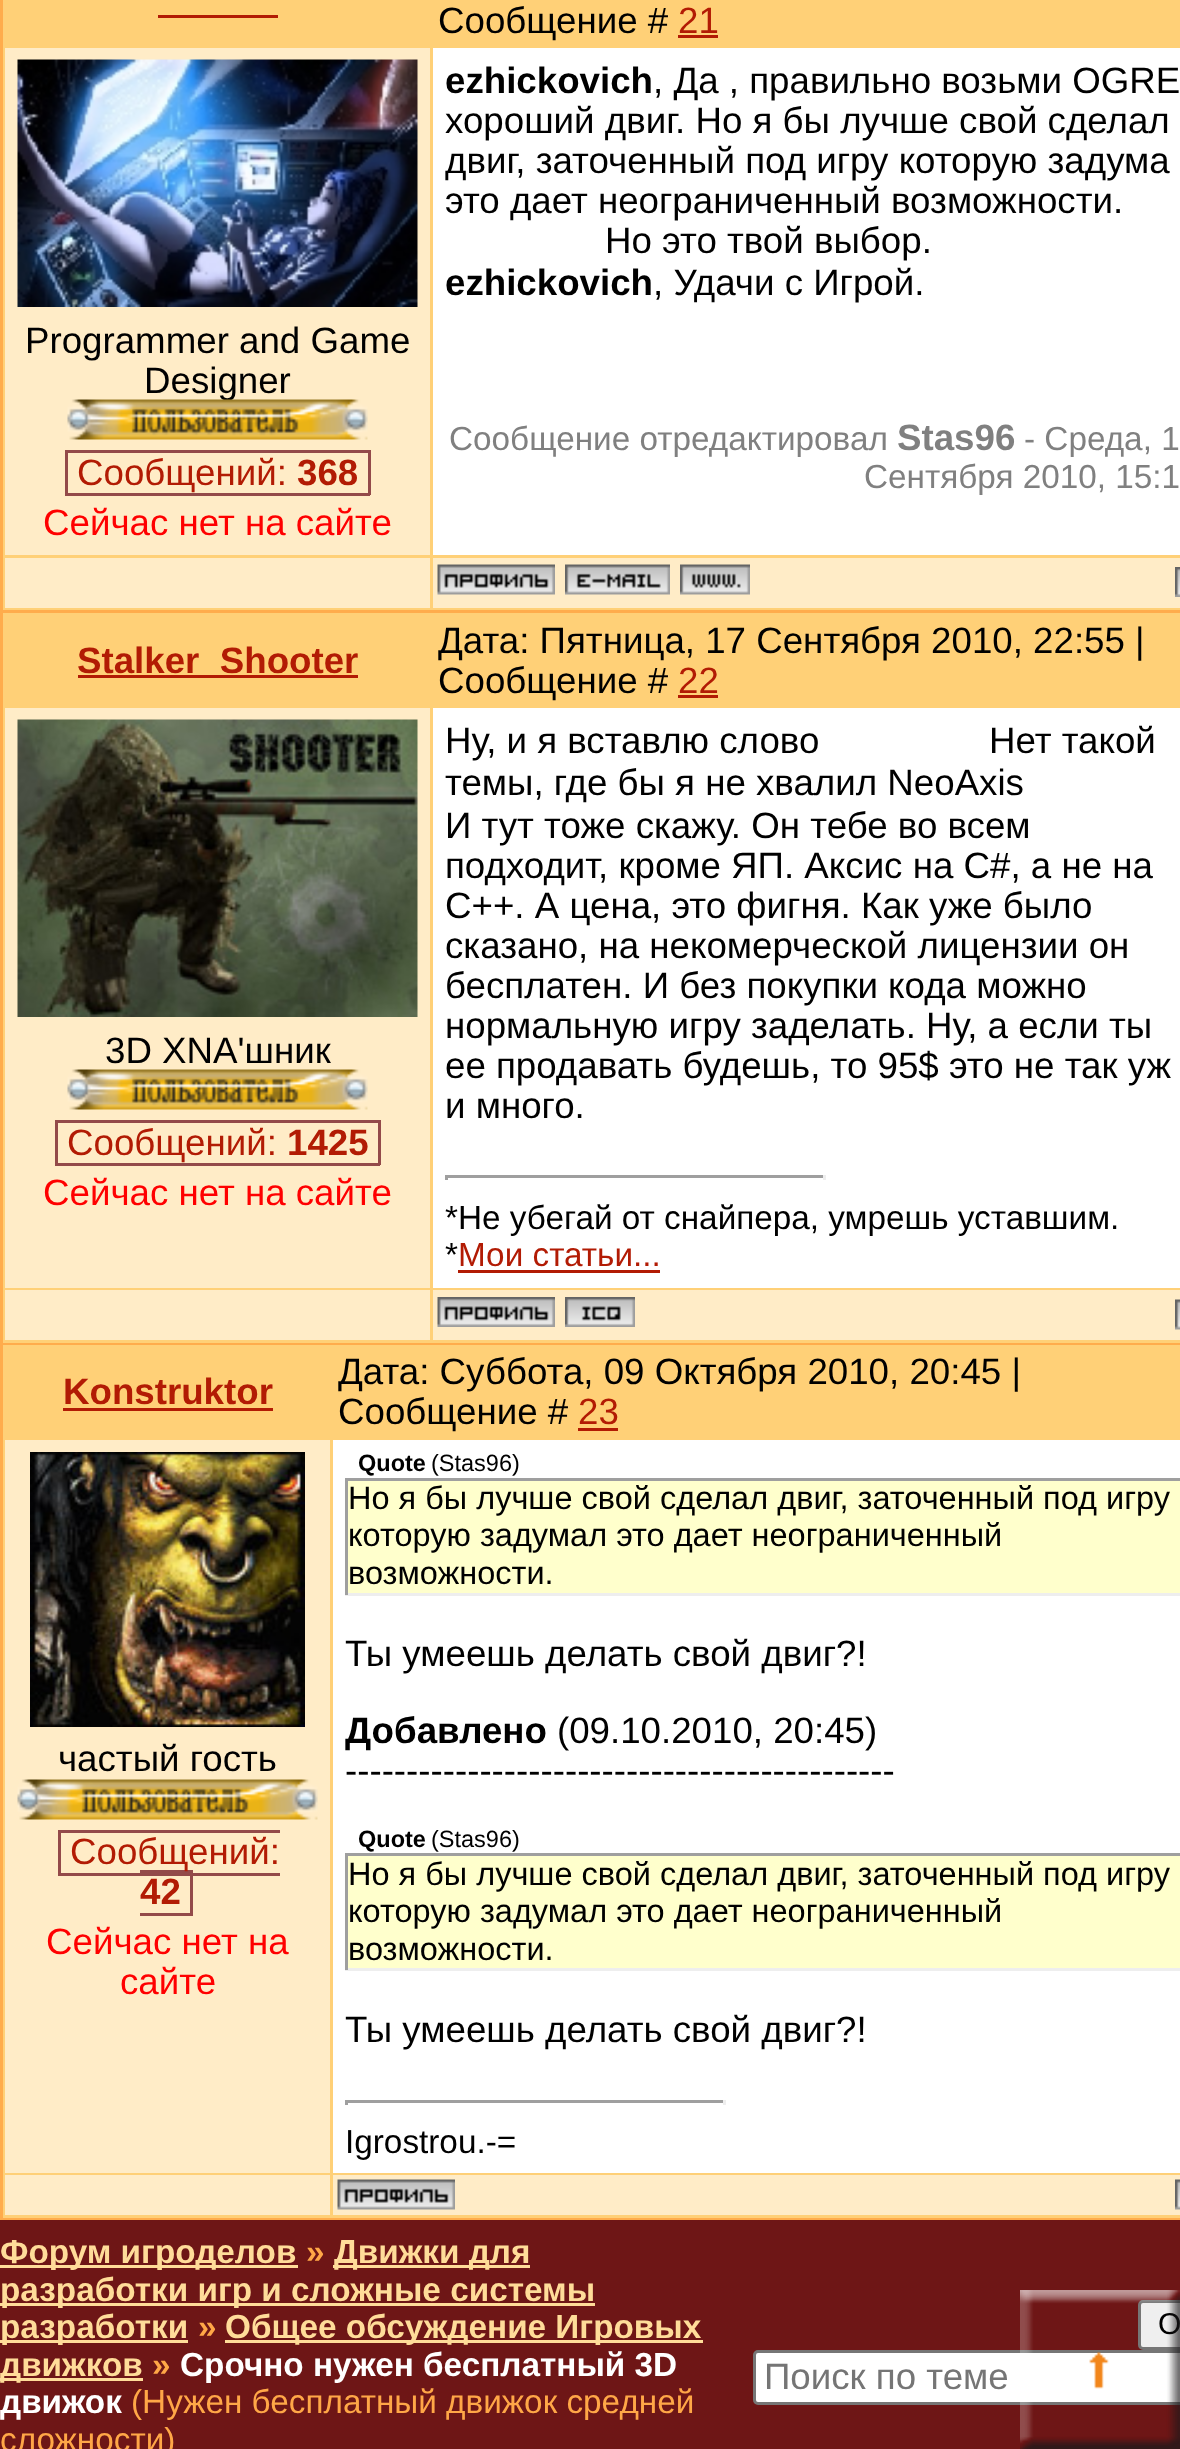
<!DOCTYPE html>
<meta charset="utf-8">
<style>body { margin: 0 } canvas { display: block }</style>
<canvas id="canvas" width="1180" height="2449"></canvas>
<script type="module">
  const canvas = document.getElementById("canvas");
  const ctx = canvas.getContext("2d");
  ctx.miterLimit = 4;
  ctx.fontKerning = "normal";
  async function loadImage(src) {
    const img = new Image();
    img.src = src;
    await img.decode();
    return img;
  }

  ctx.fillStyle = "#6e1616";
  ctx.fillRect(0, 0, 1180, 2449);
  ctx.fillStyle = "#ffac4c";
  ctx.fillRect(0, 0, 1180, 2220);
  ctx.fillStyle = "#ffd077";
  ctx.fillRect(3, 0, 1177, 610);
  ctx.fillStyle = "#b21b04";
  ctx.fillRect(158, 15, 120, 3);
  ctx.font = "36.7px Liberation Sans";
  ctx.fillStyle = "#000000";
  ctx.fillText("Сообщение #", 438, 33);
  ctx.fillStyle = "#b21b04";
  ctx.fillText("21", 678, 33);
  ctx.fillRect(678, 35, 40, 3);
  ctx.fillStyle = "#ffecc7";
  ctx.fillRect(5, 48, 425, 507);
  ctx.drawImage(await loadImage("img1.png"), 17, 59, 401, 248);
  ctx.fillStyle = "#000000";
  ctx.fillText("Programmer and Game", 25, 353);
  ctx.fillText("Designer", 144, 393);
  ctx.drawImage(await loadImage("img2.png"), 67, 399, 301, 41);
  ctx.fillStyle = "#b21b04";
  ctx.fillText("Сообщений:", 77, 485);
  ctx.fillStyle = "#934a4a";
  ctx.fillRect(65, 493, 233, 3);
  ctx.fillRect(65, 450, 305, 3);
  ctx.fillRect(65, 450, 3, 45);
  ctx.font = "bold 36.7px Liberation Sans";
  ctx.fillStyle = "#b21b04";
  ctx.fillText("368", 297, 485);
  ctx.fillStyle = "#934a4a";
  ctx.fillRect(368, 450, 3, 45);
  ctx.fillRect(298, 493, 72, 3);
  ctx.font = "36.7px Liberation Sans";
  ctx.fillStyle = "#ff0000";
  ctx.fillText("Сейчас нет на сайте", 43, 535);
  ctx.fillStyle = "#ffffff";
  ctx.fillRect(433, 48, 747, 507);
  ctx.font = "bold 36.7px Liberation Sans";
  ctx.fillStyle = "#000000";
  ctx.fillText("ezhickovich", 445, 93);
  ctx.font = "36.7px Liberation Sans";
  ctx.fillText(", Да , правильно возьми OGRE", 653, 93);
  ctx.fillText("хороший двиг. Но я бы лучше свой сделал", 445, 133);
  ctx.fillText("двиг, заточенный под игру которую задума", 445, 173);
  ctx.fillText("это дает неограниченный возможности.", 445, 213);
  ctx.fillText("Но это твой выбор.", 605, 253);
  ctx.font = "bold 36.7px Liberation Sans";
  ctx.fillText("ezhickovich", 445, 295);
  ctx.font = "36.7px Liberation Sans";
  ctx.fillText(", Удачи с Игрой.", 653, 295);
  ctx.font = "33.3px Liberation Sans";
  ctx.fillStyle = "#808080";
  ctx.fillText("Сообщение отредактировал", 449, 450);
  ctx.font = "bold 36.7px Liberation Sans";
  ctx.fillText("Stas96", 897, 450);
  ctx.font = "33.3px Liberation Sans";
  ctx.fillText("- Среда, 1", 1024, 450);
  ctx.fillText("Сентября 2010, 15:1", 864, 488);
  ctx.fillStyle = "#ffecc7";
  ctx.fillRect(5, 558, 425, 50);
  ctx.fillRect(433, 558, 747, 50);
  ctx.drawImage(await loadImage("img3.png"), 437, 564, 118, 31);
  ctx.drawImage(await loadImage("img4.png"), 565, 564, 105, 31);
  ctx.drawImage(await loadImage("img5.png"), 680, 564, 70, 31);
  ctx.drawImage(await loadImage("img6.png"), 1175, 567, 5, 30);
  ctx.fillStyle = "#ffd077";
  ctx.fillRect(3, 613, 1177, 730);
  ctx.fillStyle = "#b21b04";
  ctx.fillRect(78, 675, 280, 3);
  ctx.font = "bold 36.7px Liberation Sans";
  ctx.fillText("Stalker_Shooter", 77, 673);
  ctx.font = "36.7px Liberation Sans";
  ctx.fillStyle = "#000000";
  ctx.fillText("Дата: Пятница, 17 Сентября 2010, 22:55 |", 438, 653);
  ctx.fillText("Сообщение #", 438, 693);
  ctx.fillStyle = "#b21b04";
  ctx.fillText("22", 678, 693);
  ctx.fillRect(678, 695, 40, 3);
  ctx.fillStyle = "#ffecc7";
  ctx.fillRect(5, 708, 425, 580);
  ctx.drawImage(await loadImage("img7.png"), 17, 719, 401, 298);
  ctx.fillStyle = "#000000";
  ctx.fillText("3D XNA'шник", 105, 1063);
  ctx.drawImage(await loadImage("img8.png"), 67, 1069, 301, 41);
  ctx.fillStyle = "#b21b04";
  ctx.fillText("Сообщений:", 67, 1155);
  ctx.fillStyle = "#934a4a";
  ctx.fillRect(55, 1163, 233, 3);
  ctx.fillRect(55, 1120, 325, 3);
  ctx.fillRect(55, 1120, 3, 45);
  ctx.font = "bold 36.7px Liberation Sans";
  ctx.fillStyle = "#b21b04";
  ctx.fillText("1425", 287, 1155);
  ctx.fillStyle = "#934a4a";
  ctx.fillRect(378, 1120, 3, 45);
  ctx.fillRect(288, 1163, 92, 3);
  ctx.font = "36.7px Liberation Sans";
  ctx.fillStyle = "#ff0000";
  ctx.fillText("Сейчас нет на сайте", 43, 1205);
  ctx.fillStyle = "#ffffff";
  ctx.fillRect(433, 708, 747, 580);
  ctx.fillStyle = "#000000";
  ctx.fillText("Ну, и я вставлю слово", 445, 753);
  ctx.fillText("Нет такой", 989, 753);
  ctx.fillText("темы, где бы я не хвалил NeoAxis", 445, 795);
  ctx.fillText("И тут тоже скажу. Он тебе во всем", 445, 838);
  ctx.fillText("подходит, кроме ЯП. Аксис на C#, а не на", 445, 878);
  ctx.fillText("С++. А цена, это фигня. Как уже было", 445, 918);
  ctx.fillText("сказано, на некомерческой лицензии он", 445, 958);
  ctx.fillText("бесплатен. И без покупки кода можно", 445, 998);
  ctx.fillText("нормальную игру заделать. Ну, а если ты", 445, 1038);
  ctx.fillText("ее продавать будешь, то 95$ это не так уж", 445, 1078);
  ctx.fillText("и много.", 445, 1118);
  ctx.fillStyle = "#9f9f9f";
  ctx.fillRect(445, 1175, 380, 3);
  ctx.fillStyle = "#eeeeee";
  ctx.fillRect(823, 1175, 3, 5);
  ctx.fillStyle = "#9f9f9f";
  ctx.fillRect(445, 1175, 3, 5);
  ctx.font = "33.3px Liberation Sans";
  ctx.fillStyle = "#000000";
  ctx.fillText("*Не убегай от снайпера, умрешь уставшим.", 445, 1229);
  ctx.fillText("*", 445, 1266);
  ctx.fillStyle = "#b21b04";
  ctx.fillText("Мои статьи...", 458, 1266);
  ctx.fillRect(458, 1270, 202, 3);
  ctx.fillStyle = "#ffecc7";
  ctx.fillRect(5, 1290, 425, 50);
  ctx.fillRect(433, 1290, 747, 50);
  ctx.drawImage(await loadImage("img9.png"), 437, 1297, 118, 30);
  ctx.drawImage(await loadImage("img10.png"), 565, 1297, 70, 30);
  ctx.drawImage(await loadImage("img11.png"), 1175, 1299, 5, 31);
  ctx.fillStyle = "#ffd077";
  ctx.fillRect(3, 1345, 1177, 873);
  ctx.font = "bold 36.7px Liberation Sans";
  ctx.fillStyle = "#b21b04";
  ctx.fillText("Konstruktor", 63, 1404);
  ctx.fillRect(63, 1408, 210, 3);
  ctx.font = "36.7px Liberation Sans";
  ctx.fillStyle = "#000000";
  ctx.fillText("Дата: Суббота, 09 Октября 2010, 20:45 |", 338, 1384);
  ctx.fillText("Сообщение #", 338, 1424);
  ctx.fillStyle = "#b21b04";
  ctx.fillText("23", 578, 1424);
  ctx.fillRect(578, 1428, 40, 3);
  ctx.fillStyle = "#ffecc7";
  ctx.fillRect(5, 1440, 325, 733);
  ctx.drawImage(await loadImage("img12.png"), 30, 1452, 275, 275);
  ctx.fillStyle = "#000000";
  ctx.fillText("частый гость", 58, 1771);
  ctx.drawImage(await loadImage("img13.png"), 17, 1779, 301, 41);
  ctx.fillStyle = "#934a4a";
  ctx.fillRect(140, 1870, 53, 3);
  ctx.fillRect(58, 1873, 222, 3);
  ctx.fillRect(190, 1870, 3, 45);
  ctx.fillStyle = "#b21b04";
  ctx.fillText("Сообщений:", 70, 1864);
  ctx.fillStyle = "#934a4a";
  ctx.fillRect(58, 1830, 222, 3);
  ctx.fillRect(58, 1830, 3, 45);
  ctx.font = "bold 36.7px Liberation Sans";
  ctx.fillStyle = "#b21b04";
  ctx.fillText("42", 140, 1904);
  ctx.fillStyle = "#934a4a";
  ctx.fillRect(140, 1913, 53, 3);
  ctx.font = "36.7px Liberation Sans";
  ctx.fillStyle = "#ff0000";
  ctx.fillText("Сейчас нет на", 46, 1954);
  ctx.fillText("сайте", 120, 1994);
  ctx.fillStyle = "#ffffff";
  ctx.fillRect(333, 1440, 847, 733);
  ctx.font = "bold 23.5px Liberation Sans";
  ctx.fillStyle = "#000000";
  ctx.fillText("Quote", 358, 1471);
  ctx.font = "23.5px Liberation Sans";
  ctx.fillText("(Stas96)", 431, 1471);
  ctx.fillStyle = "#ffffcc";
  ctx.fillRect(348, 1481, 832, 112);
  ctx.fillStyle = "#9f9f9f";
  ctx.fillRect(345, 1478, 835, 3);
  ctx.fillStyle = "#eeeeee";
  ctx.fillRect(345, 1593, 835, 3);
  ctx.fillStyle = "#9f9f9f";
  ctx.fillRect(345, 1478, 3, 117);
  ctx.font = "32.5px Liberation Sans";
  ctx.fillStyle = "#000000";
  ctx.fillText("Но я бы лучше свой сделал двиг, заточенный под игру", 348, 1509);
  ctx.fillText("которую задумал это дает неограниченный", 348, 1546);
  ctx.fillText("возможности.", 348, 1584);
  ctx.font = "36.7px Liberation Sans";
  ctx.fillText("Ты умеешь делать свой двиг?!", 345, 1666);
  ctx.font = "bold 36.7px Liberation Sans";
  ctx.fillText("Добавлено", 345, 1743);
  ctx.font = "36.7px Liberation Sans";
  ctx.fillText("(09.10.2010, 20:45)", 557, 1743);
  ctx.fillText("---------------------------------------------", 345, 1783);
  ctx.font = "bold 23.5px Liberation Sans";
  ctx.fillText("Quote", 358, 1847);
  ctx.font = "23.5px Liberation Sans";
  ctx.fillText("(Stas96)", 431, 1847);
  ctx.fillStyle = "#ffffcc";
  ctx.fillRect(348, 1856, 832, 112);
  ctx.fillStyle = "#9f9f9f";
  ctx.fillRect(345, 1853, 835, 3);
  ctx.fillStyle = "#eeeeee";
  ctx.fillRect(345, 1968, 835, 3);
  ctx.fillStyle = "#9f9f9f";
  ctx.fillRect(345, 1853, 3, 117);
  ctx.font = "32.5px Liberation Sans";
  ctx.fillStyle = "#000000";
  ctx.fillText("Но я бы лучше свой сделал двиг, заточенный под игру", 348, 1885);
  ctx.fillText("которую задумал это дает неограниченный", 348, 1922);
  ctx.fillText("возможности.", 348, 1960);
  ctx.font = "36.7px Liberation Sans";
  ctx.fillText("Ты умеешь делать свой двиг?!", 345, 2042);
  ctx.fillStyle = "#9f9f9f";
  ctx.fillRect(345, 2100, 380, 3);
  ctx.fillStyle = "#eeeeee";
  ctx.fillRect(723, 2100, 3, 5);
  ctx.fillStyle = "#9f9f9f";
  ctx.fillRect(345, 2100, 3, 5);
  ctx.font = "33.3px Liberation Sans";
  ctx.fillStyle = "#000000";
  ctx.fillText("Igrostrou.-=", 345, 2153);
  ctx.fillStyle = "#ffecc7";
  ctx.fillRect(5, 2175, 325, 40);
  ctx.fillRect(333, 2175, 847, 40);
  ctx.drawImage(await loadImage("img14.png"), 337, 2179, 118, 31);
  ctx.drawImage(await loadImage("img15.png"), 1175, 2179, 5, 31);
  ctx.fillStyle = "#ffdc99";
  ctx.fillRect(0, 2265, 298, 3);
  ctx.font = "bold 33.3px Liberation Sans";
  ctx.fillText("Форум игроделов", 0, 2263);
  ctx.fillStyle = "#ffa747";
  ctx.fillText("»", 306, 2263);
  ctx.fillStyle = "#ffdc99";
  ctx.fillRect(333, 2265, 197, 3);
  ctx.fillText("Движки для", 334, 2263);
  ctx.fillRect(0, 2303, 595, 3);
  ctx.fillText("разработки игр и сложные системы", 0, 2301);
  ctx.fillRect(0, 2340, 188, 3);
  ctx.fillText("разработки", 0, 2338);
  ctx.fillStyle = "#ffa747";
  ctx.fillText("»", 198, 2338);
  ctx.fillStyle = "#ffdc99";
  ctx.fillRect(225, 2340, 478, 3);
  ctx.fillText("Общее обсуждение Игровых", 225, 2338);
  ctx.fillRect(0, 2378, 143, 3);
  ctx.fillText("движков", 0, 2376);
  ctx.fillStyle = "#ffa747";
  ctx.fillText("»", 152, 2376);
  ctx.fillStyle = "#ffffff";
  ctx.fillText("Срочно нужен бесплатный 3D", 180, 2376);
  ctx.fillText("движок", 0, 2413);
  ctx.font = "33.3px Liberation Sans";
  ctx.fillStyle = "#ffa747";
  ctx.fillText("(Нужен бесплатный движок средней", 131, 2413);
  ctx.fillText("сложности)", 0, 2451);
  ctx.fillStyle = "#efefef";
  ctx.beginPath();
  ctx.roundRect(1139.5, 2301.5, 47, 47, 3.5);
  ctx.fill();
  ctx.strokeStyle = "#767676";
  ctx.lineWidth = 3;
  ctx.stroke();
  ctx.font = "30px Liberation Sans";
  ctx.fillStyle = "#000000";
  ctx.fillText("O", 1158, 2334);
  ctx.fillStyle = "#ffffff";
  ctx.beginPath();
  ctx.roundRect(754.5, 2351.5, 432, 52, 3.5);
  ctx.fill();
  ctx.stroke();
  ctx.font = "36.7px Liberation Sans";
  ctx.fillStyle = "#757575";
  ctx.fillText("Поиск по теме", 764, 2389);
  ctx.drawImage(await loadImage("img16.png"), 1020, 2290, 160, 159);
</script>
